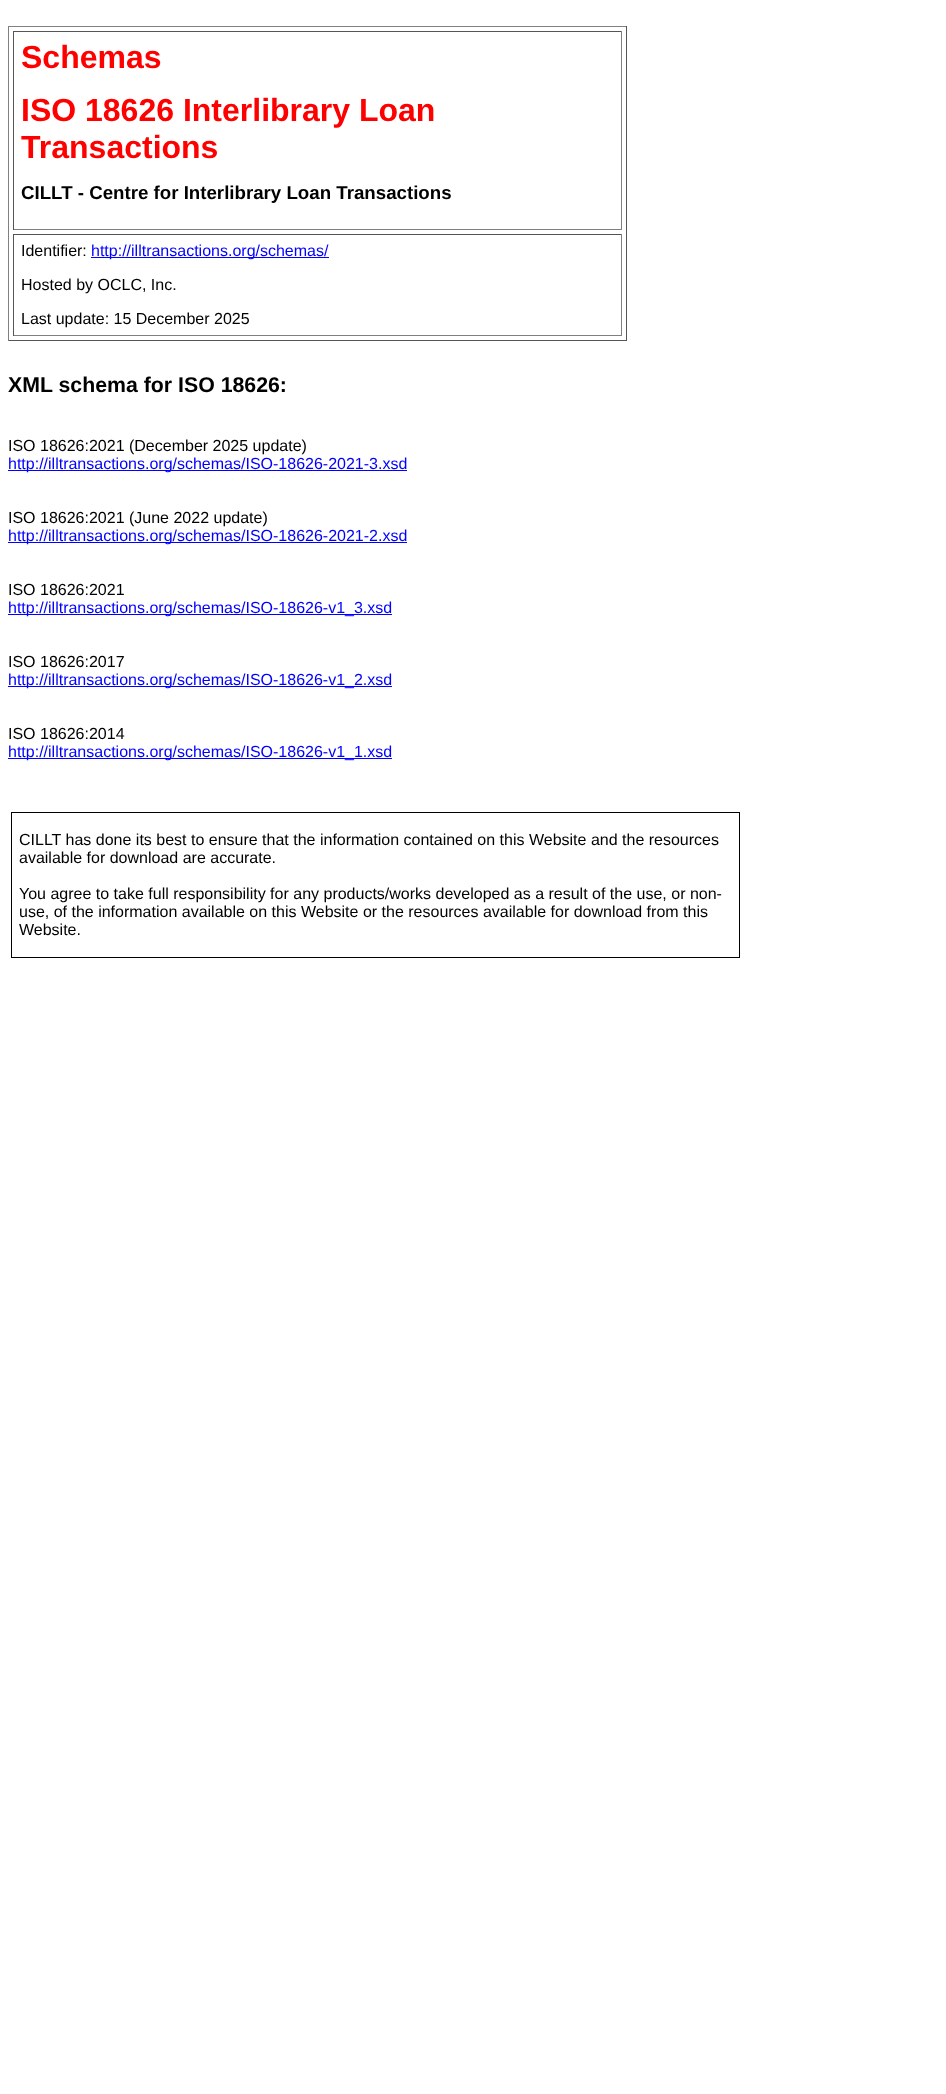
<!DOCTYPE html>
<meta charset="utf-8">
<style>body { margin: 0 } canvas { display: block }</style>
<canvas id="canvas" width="946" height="2094"></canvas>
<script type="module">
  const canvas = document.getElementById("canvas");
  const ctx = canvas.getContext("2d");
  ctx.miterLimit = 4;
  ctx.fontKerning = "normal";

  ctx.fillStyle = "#ffffff";
  ctx.fillRect(0, 0, 946, 2094);
  ctx.fillStyle = "#808080";
  ctx.fillRect(8, 26, 619, 1);
  ctx.fillStyle = "#555555";
  ctx.fillRect(626, 26, 1, 315);
  ctx.fillRect(8, 340, 619, 1);
  ctx.fillStyle = "#808080";
  ctx.fillRect(8, 26, 1, 315);
  ctx.fillStyle = "#555555";
  ctx.fillRect(13, 31, 609, 1);
  ctx.fillStyle = "#808080";
  ctx.fillRect(621, 31, 1, 199);
  ctx.fillRect(13, 229, 609, 1);
  ctx.fillStyle = "#555555";
  ctx.fillRect(13, 31, 1, 199);
  ctx.font = "bold 32px Liberation Sans";
  ctx.fillStyle = "#ff0000";
  ctx.fillText("Schemas", 21, 68);
  ctx.fillText("ISO 18626 Interlibrary Loan", 21, 121);
  ctx.fillText("Transactions", 21, 158);
  ctx.font = "bold 18.7px Liberation Sans";
  ctx.fillStyle = "#000000";
  ctx.fillText("CILLT - Centre for Interlibrary Loan Transactions", 21, 199);
  ctx.fillStyle = "#555555";
  ctx.fillRect(13, 234, 609, 1);
  ctx.fillStyle = "#808080";
  ctx.fillRect(621, 234, 1, 102);
  ctx.fillRect(13, 335, 609, 1);
  ctx.fillStyle = "#555555";
  ctx.fillRect(13, 234, 1, 102);
  ctx.font = "16px Liberation Sans";
  ctx.fillStyle = "#000000";
  ctx.fillText("Identifier:", 21, 256);
  ctx.fillStyle = "#0000ff";
  ctx.fillRect(91, 257, 238, 1);
  ctx.fillText("http://illtransactions.org/schemas/", 91, 256);
  ctx.fillStyle = "#000000";
  ctx.fillText("Hosted by OCLC, Inc.", 21, 290);
  ctx.fillText("Last update: 15 December 2025", 21, 324);
  ctx.font = "bold 21.3px Liberation Sans";
  ctx.fillText("XML schema for ISO 18626:", 8, 392);
  ctx.font = "16px Liberation Sans";
  ctx.fillText("ISO 18626:2021 (December 2025 update)", 8, 451);
  ctx.fillStyle = "#0000ff";
  ctx.fillRect(8, 470, 399, 1);
  ctx.fillText("http://illtransactions.org/schemas/ISO-18626-2021-3.xsd", 8, 469);
  ctx.fillStyle = "#000000";
  ctx.fillText("ISO 18626:2021 (June 2022 update)", 8, 523);
  ctx.fillStyle = "#0000ff";
  ctx.fillRect(8, 542, 399, 1);
  ctx.fillText("http://illtransactions.org/schemas/ISO-18626-2021-2.xsd", 8, 541);
  ctx.fillStyle = "#000000";
  ctx.fillText("ISO 18626:2021", 8, 595);
  ctx.fillStyle = "#0000ff";
  ctx.fillRect(8, 614, 384, 1);
  ctx.fillText("http://illtransactions.org/schemas/ISO-18626-v1_3.xsd", 8, 613);
  ctx.fillStyle = "#000000";
  ctx.fillText("ISO 18626:2017", 8, 667);
  ctx.fillStyle = "#0000ff";
  ctx.fillRect(8, 686, 384, 1);
  ctx.fillText("http://illtransactions.org/schemas/ISO-18626-v1_2.xsd", 8, 685);
  ctx.fillStyle = "#000000";
  ctx.fillText("ISO 18626:2014", 8, 739);
  ctx.fillStyle = "#0000ff";
  ctx.fillRect(8, 758, 384, 1);
  ctx.fillText("http://illtransactions.org/schemas/ISO-18626-v1_1.xsd", 8, 757);
  ctx.fillStyle = "#000000";
  ctx.fillRect(11, 812, 729, 1);
  ctx.fillRect(739, 812, 1, 146);
  ctx.fillRect(11, 957, 729, 1);
  ctx.fillRect(11, 812, 1, 146);
  ctx.fillText("CILLT has done its best to ensure that the information contained on this Website and the resources", 19, 845);
  ctx.fillText("available for download are accurate.", 19, 863);
  ctx.fillText("You agree to take full responsibility for any products/works developed as a result of the use, or non-", 19, 899);
  ctx.fillText("use, of the information available on this Website or the resources available for download from this", 19, 917);
  ctx.fillText("Website.", 19, 935);
</script>
